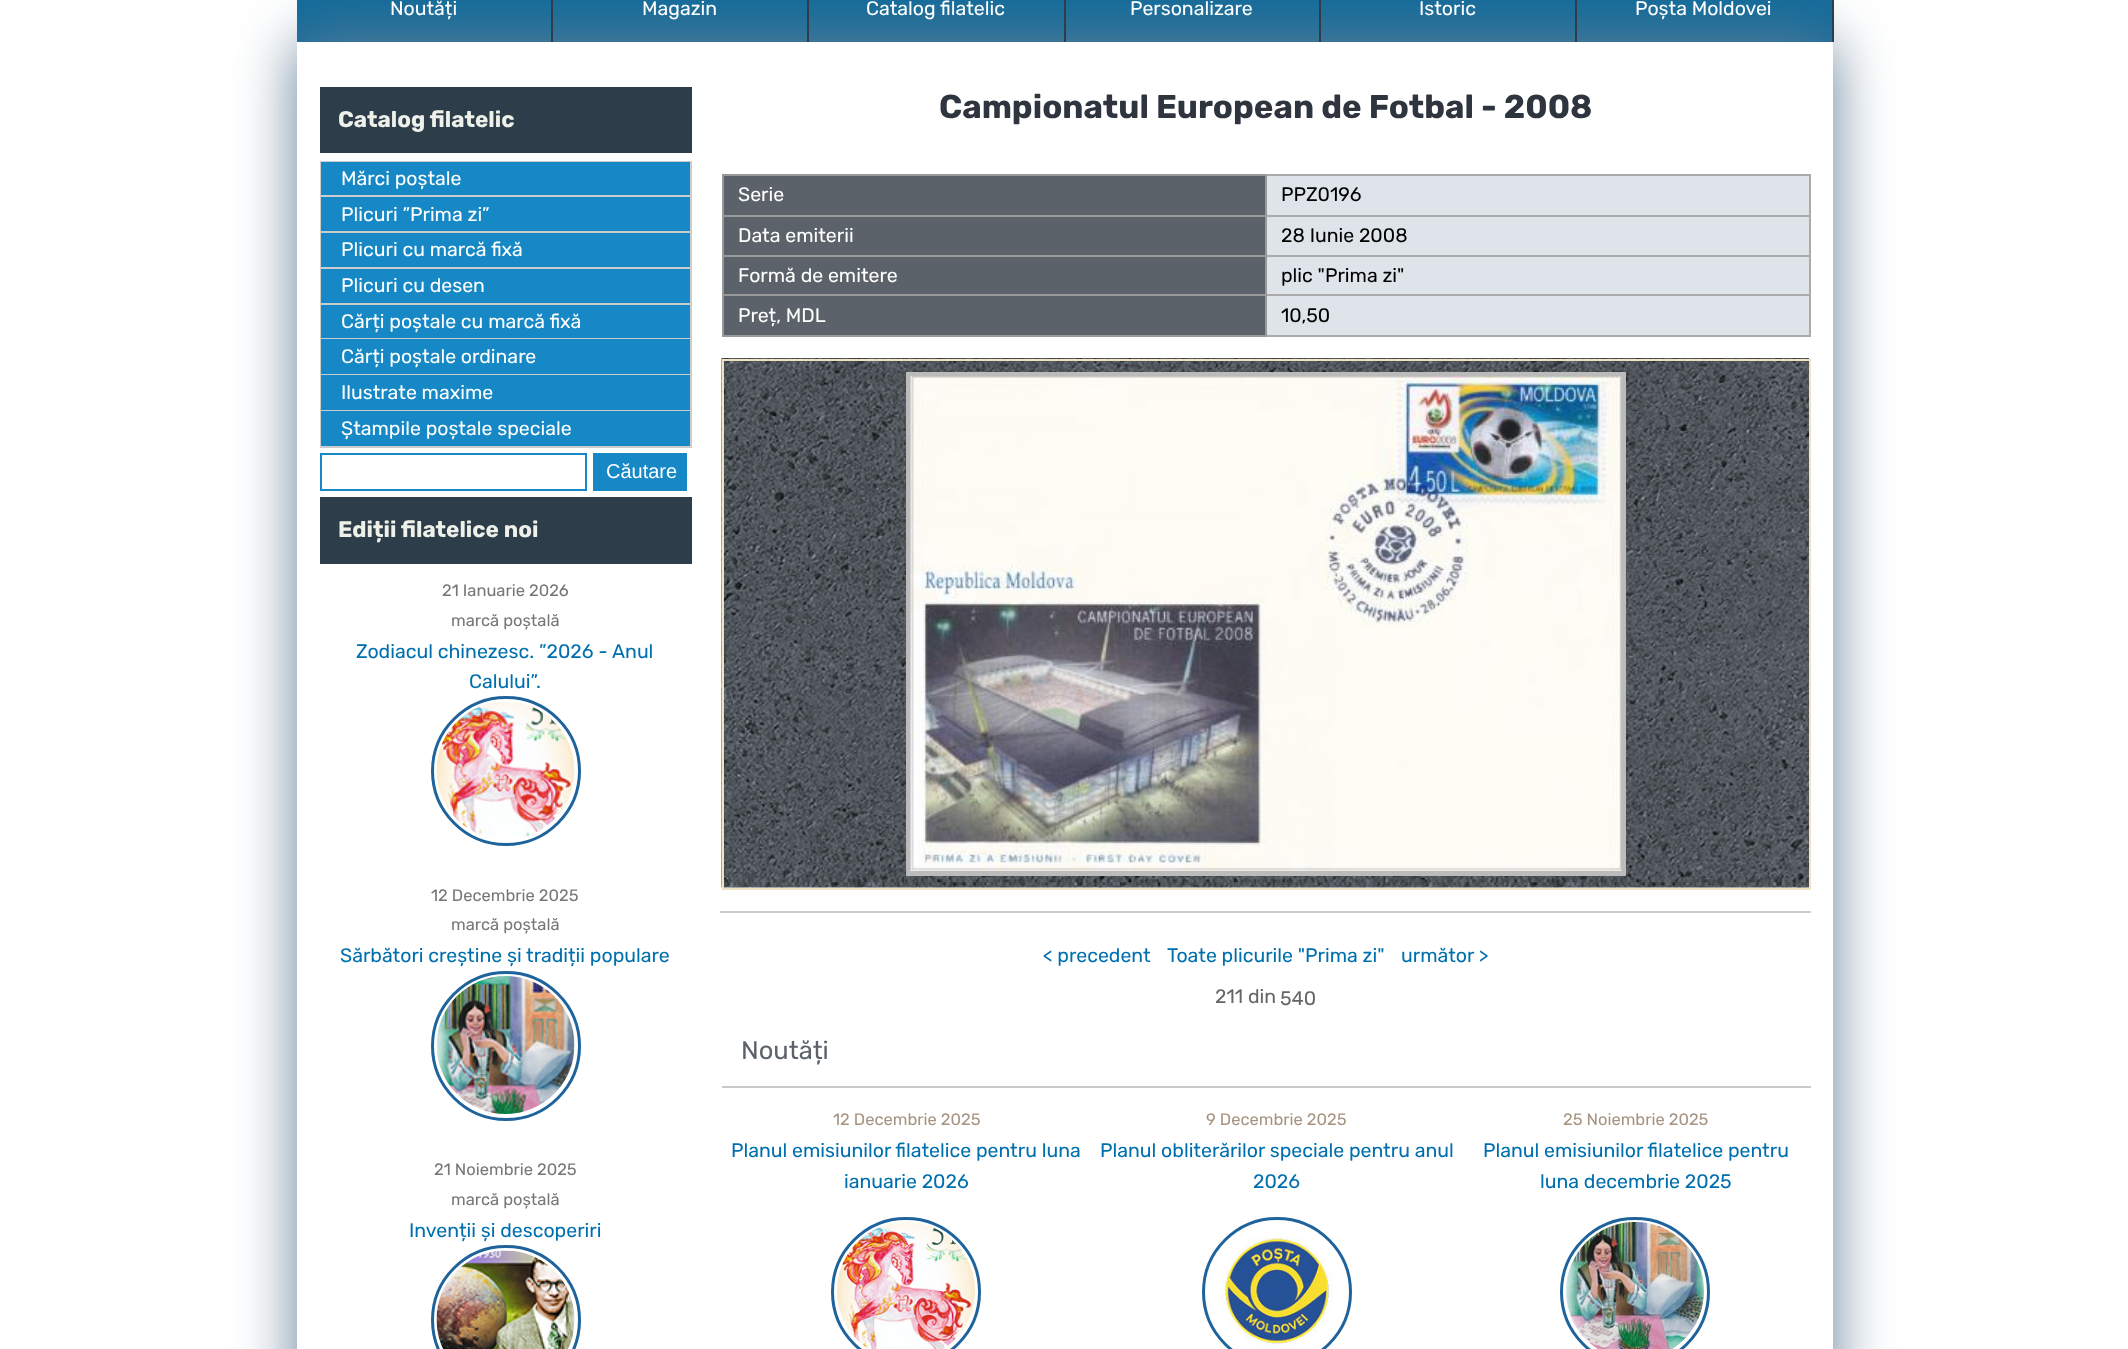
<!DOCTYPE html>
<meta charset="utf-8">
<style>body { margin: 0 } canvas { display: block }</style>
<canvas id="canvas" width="2128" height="1349"></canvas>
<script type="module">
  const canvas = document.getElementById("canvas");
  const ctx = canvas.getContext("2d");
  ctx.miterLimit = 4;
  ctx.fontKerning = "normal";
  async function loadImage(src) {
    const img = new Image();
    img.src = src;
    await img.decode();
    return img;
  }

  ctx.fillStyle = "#ffffff";
  ctx.fillRect(0, 0, 2128, 1349);
  ctx.fillStyle = "#136b9a";
  ctx.fillRect(297, 0, 1535, 42);
  ctx.save();
  ctx.beginPath();
  ctx.moveTo(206, 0);
  ctx.lineTo(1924, 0);
  ctx.lineTo(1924, 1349);
  ctx.lineTo(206, 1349);
  ctx.closePath();
  ctx.moveTo(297, 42);
  ctx.lineTo(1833, 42);
  ctx.lineTo(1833, 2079);
  ctx.lineTo(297, 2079);
  ctx.closePath();
  ctx.clip("evenodd");
  ctx.fillStyle = "#637f97";
  ctx.filter = "blur(30px)";
  ctx.beginPath();
  ctx.rect(297, 42, 1536, 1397);
  ctx.fill();
  ctx.filter = "none";
  ctx.restore();
  ctx.fillStyle = "#2e3d4a";
  ctx.fillRect(551, 0, 2, 42);
  ctx.font = "19.5px Rubik";
  ctx.fillStyle = "#ffffff";
  ctx.fillText("Noutăți", 390, 15);
  ctx.fillStyle = "#2e3d4a";
  ctx.fillRect(807, 0, 2, 42);
  ctx.fillStyle = "#ffffff";
  ctx.fillText("Magazin", 642, 15);
  ctx.fillStyle = "#2e3d4a";
  ctx.fillRect(1064, 0, 2, 42);
  ctx.fillStyle = "#ffffff";
  ctx.fillText("Catalog filatelic", 866, 15);
  ctx.fillStyle = "#2e3d4a";
  ctx.fillRect(1319, 0, 2, 42);
  ctx.fillStyle = "#ffffff";
  ctx.fillText("Personalizare", 1130, 15);
  ctx.fillStyle = "#2e3d4a";
  ctx.fillRect(1575, 0, 2, 42);
  ctx.fillStyle = "#ffffff";
  ctx.fillText("Istoric", 1419, 15);
  ctx.fillStyle = "#2e3d4a";
  ctx.fillRect(1832, 0, 2, 42);
  ctx.fillStyle = "#ffffff";
  ctx.fillText("Poșta Moldovei", 1635, 15);
  ctx.fillStyle = "#2e3d4a";
  ctx.fillRect(320, 87, 372, 66);
  ctx.font = "bold 22.5px Rubik";
  ctx.fillStyle = "#eef1ea";
  ctx.fillText("Catalog filatelic", 338, 127);
  ctx.fillStyle = "#cccccc";
  ctx.fillRect(320, 161, 372, 1);
  ctx.fillRect(690, 162, 2, 285);
  ctx.fillRect(320, 195, 372, 2);
  ctx.fillRect(320, 162, 2, 35);
  ctx.fillStyle = "#1588c5";
  ctx.fillRect(321, 162, 369, 33);
  ctx.font = "19.5px Rubik";
  ctx.fillStyle = "#ffffff";
  ctx.fillText("Mărci poștale", 341, 185);
  ctx.fillStyle = "#cccccc";
  ctx.fillRect(320, 231, 372, 2);
  ctx.fillRect(320, 197, 2, 36);
  ctx.fillStyle = "#1588c5";
  ctx.fillRect(321, 197, 369, 34);
  ctx.fillStyle = "#ffffff";
  ctx.fillText("Plicuri ”Prima zi”", 341, 221);
  ctx.fillStyle = "#cccccc";
  ctx.fillRect(320, 267, 372, 2);
  ctx.fillRect(320, 233, 2, 36);
  ctx.fillStyle = "#1588c5";
  ctx.fillRect(321, 233, 369, 34);
  ctx.fillStyle = "#ffffff";
  ctx.fillText("Plicuri cu marcă fixă", 341, 256);
  ctx.fillStyle = "#cccccc";
  ctx.fillRect(320, 303, 372, 2);
  ctx.fillRect(320, 269, 2, 36);
  ctx.fillStyle = "#1588c5";
  ctx.fillRect(321, 269, 369, 34);
  ctx.fillStyle = "#ffffff";
  ctx.fillText("Plicuri cu desen", 341, 292);
  ctx.fillStyle = "#cccccc";
  ctx.fillRect(320, 338, 372, 1);
  ctx.fillRect(320, 305, 2, 34);
  ctx.fillStyle = "#1588c5";
  ctx.fillRect(321, 305, 369, 33);
  ctx.fillStyle = "#ffffff";
  ctx.fillText("Cărți poștale cu marcă fixă", 341, 328);
  ctx.fillStyle = "#cccccc";
  ctx.fillRect(320, 374, 372, 1);
  ctx.fillRect(320, 339, 2, 36);
  ctx.fillStyle = "#1588c5";
  ctx.fillRect(321, 339, 369, 35);
  ctx.fillStyle = "#ffffff";
  ctx.fillText("Cărți poștale ordinare", 341, 363);
  ctx.fillStyle = "#cccccc";
  ctx.fillRect(320, 410, 372, 1);
  ctx.fillRect(320, 375, 2, 36);
  ctx.fillStyle = "#1588c5";
  ctx.fillRect(321, 375, 369, 35);
  ctx.fillStyle = "#ffffff";
  ctx.fillText("Ilustrate maxime", 341, 399);
  ctx.fillStyle = "#cccccc";
  ctx.fillRect(320, 446, 372, 2);
  ctx.fillRect(320, 411, 2, 36);
  ctx.fillStyle = "#1588c5";
  ctx.fillRect(321, 411, 369, 35);
  ctx.fillStyle = "#ffffff";
  ctx.fillText("Ștampile poștale speciale", 341, 435);
  ctx.strokeStyle = "#1588c5";
  ctx.lineWidth = 2;
  ctx.strokeRect(321, 454, 265, 36);
  ctx.fillStyle = "#1588c5";
  ctx.fillRect(593, 453, 94, 38);
  ctx.font = "20px Liberation Sans";
  ctx.fillStyle = "#ffffff";
  ctx.fillText("Căutare", 606, 478);
  ctx.fillStyle = "#2e3d4a";
  ctx.fillRect(320, 497, 372, 67);
  ctx.font = "bold 22.5px Rubik";
  ctx.fillStyle = "#eef1ea";
  ctx.fillText("Ediții filatelice noi", 338, 537);
  ctx.font = "16.5px Rubik";
  ctx.fillStyle = "#777777";
  ctx.fillText("21 Ianuarie 2026", 442, 596);
  ctx.fillText("marcă poștală", 451, 626);
  ctx.font = "19.5px Rubik";
  ctx.fillStyle = "#006fae";
  ctx.fillText("Zodiacul chinezesc. ”2026 - Anul", 356, 658);
  ctx.fillText("Calului”.", 469, 688);
  ctx.beginPath();
  ctx.arc(506, 771, 73.5, 0, Math.PI * 2);
  ctx.strokeStyle = "#1f639c";
  ctx.lineWidth = 3;
  ctx.stroke();
  ctx.drawImage(await loadImage("img1.png"), 436, 702, 139, 135);
  ctx.font = "16.5px Rubik";
  ctx.fillStyle = "#777777";
  ctx.fillText("12 Decembrie 2025", 431, 901);
  ctx.fillText("marcă poștală", 451, 930);
  ctx.font = "19.5px Rubik";
  ctx.fillStyle = "#006fae";
  ctx.fillText("Sărbători creștine și tradiții populare", 340, 962);
  ctx.beginPath();
  ctx.arc(506, 1046, 73.5, 0, Math.PI * 2);
  ctx.stroke();
  ctx.drawImage(await loadImage("img2.png"), 436, 976, 139, 138);
  ctx.font = "16.5px Rubik";
  ctx.fillStyle = "#777777";
  ctx.fillText("21 Noiembrie 2025", 434, 1175);
  ctx.fillText("marcă poștală", 451, 1205);
  ctx.font = "19.5px Rubik";
  ctx.fillStyle = "#006fae";
  ctx.fillText("Invenții și descoperiri", 409, 1237);
  ctx.beginPath();
  ctx.arc(506, 1320, 73.5, 0, Math.PI * 2);
  ctx.stroke();
  ctx.drawImage(await loadImage("img3.png"), 436, 1250, 139, 99);
  ctx.font = "bold 33px Rubik";
  ctx.fillStyle = "#2f353e";
  ctx.fillText("Campionatul European de Fotbal - 2008", 939, 118);
  ctx.fillStyle = "#5c6269";
  ctx.fillRect(724, 176, 541, 39);
  ctx.fillStyle = "#aaaaaa";
  ctx.fillRect(1265, 174, 546, 2);
  ctx.fillStyle = "#999999";
  ctx.fillRect(722, 174, 544, 2);
  ctx.fillStyle = "#aaaaaa";
  ctx.fillRect(1809, 215, 2, 121);
  ctx.fillRect(1809, 174, 2, 42);
  ctx.fillStyle = "#999999";
  ctx.fillRect(722, 255, 544, 2);
  ctx.fillRect(722, 294, 544, 2);
  ctx.fillStyle = "#aaaaaa";
  ctx.fillRect(1265, 335, 546, 2);
  ctx.fillStyle = "#999999";
  ctx.fillRect(1265, 294, 2, 42);
  ctx.fillStyle = "#aaaaaa";
  ctx.fillRect(1265, 294, 546, 2);
  ctx.fillStyle = "#999999";
  ctx.fillRect(1265, 255, 2, 41);
  ctx.fillStyle = "#aaaaaa";
  ctx.fillRect(1265, 255, 546, 2);
  ctx.fillStyle = "#999999";
  ctx.fillRect(1265, 215, 2, 42);
  ctx.fillStyle = "#aaaaaa";
  ctx.fillRect(1265, 215, 546, 2);
  ctx.fillStyle = "#999999";
  ctx.fillRect(1265, 174, 2, 42);
  ctx.fillRect(722, 335, 544, 2);
  ctx.fillRect(722, 294, 2, 42);
  ctx.fillRect(722, 215, 2, 81);
  ctx.fillRect(722, 215, 544, 2);
  ctx.fillRect(722, 174, 2, 42);
  ctx.font = "19.5px Rubik";
  ctx.fillStyle = "#ffffff";
  ctx.fillText("Serie", 738, 201);
  ctx.fillStyle = "#dee4ea";
  ctx.fillRect(1267, 176, 542, 39);
  ctx.fillStyle = "#000000";
  ctx.fillText("PPZ0196", 1281, 201);
  ctx.fillStyle = "#5c6269";
  ctx.fillRect(724, 217, 541, 38);
  ctx.fillStyle = "#ffffff";
  ctx.fillText("Data emiterii", 738, 242);
  ctx.fillStyle = "#dee4ea";
  ctx.fillRect(1267, 217, 542, 38);
  ctx.fillStyle = "#000000";
  ctx.fillText("28 Iunie 2008", 1281, 242);
  ctx.fillStyle = "#5c6269";
  ctx.fillRect(724, 257, 541, 37);
  ctx.fillStyle = "#ffffff";
  ctx.fillText("Formă de emitere", 738, 282);
  ctx.fillStyle = "#dee4ea";
  ctx.fillRect(1267, 257, 542, 37);
  ctx.fillStyle = "#000000";
  ctx.fillText("plic \"Prima zi\"", 1281, 282);
  ctx.fillStyle = "#5c6269";
  ctx.fillRect(724, 296, 541, 39);
  ctx.fillStyle = "#ffffff";
  ctx.fillText("Preț, MDL", 738, 322);
  ctx.fillStyle = "#dee4ea";
  ctx.fillRect(1267, 296, 542, 39);
  ctx.fillStyle = "#000000";
  ctx.fillText("10,50", 1281, 322);
  ctx.drawImage(await loadImage("img4.png"), 721, 358, 1088, 530);
  ctx.fillStyle = "#f0e3c3";
  ctx.fillRect(722, 359, 1089, 2);
  ctx.fillRect(1809, 359, 2, 531);
  ctx.fillRect(722, 888, 1089, 2);
  ctx.fillRect(722, 359, 2, 531);
  ctx.strokeStyle = "#bbbbbb";
  ctx.lineWidth = 5;
  ctx.strokeRect(908.5, 374.5, 715, 499);
  ctx.drawImage(await loadImage("img5.png"), 910, 376, 712, 495);
  ctx.fillStyle = "#cccccc";
  ctx.fillRect(720, 911, 1091, 2);
  ctx.fillStyle = "#006fae";
  ctx.fillText("< precedent", 1043, 962);
  ctx.fillText("Toate plicurile \"Prima zi\"", 1167, 962);
  ctx.fillText("următor >", 1401, 962);
  ctx.fillStyle = "#666666";
  ctx.fillText("211 din", 1215, 1003);
  ctx.fillText("540", 1280, 1005);
  ctx.fillStyle = "#cac9c9";
  ctx.fillRect(722, 1086, 1089, 2);
  ctx.font = "25.5px Rubik";
  ctx.fillStyle = "#5c6269";
  ctx.fillText("Noutăți", 741, 1059);
  ctx.font = "16.5px Rubik";
  ctx.fillStyle = "#a79381";
  ctx.fillText("12 Decembrie 2025", 833, 1125);
  ctx.font = "19.5px Rubik";
  ctx.fillStyle = "#006fae";
  ctx.fillText("Planul emisiunilor filatelice pentru luna", 731, 1157);
  ctx.fillText("ianuarie 2026", 844, 1188);
  ctx.beginPath();
  ctx.arc(906, 1292, 73.5, 0, Math.PI * 2);
  ctx.strokeStyle = "#1f639c";
  ctx.lineWidth = 3;
  ctx.stroke();
  ctx.drawImage(await loadImage("img6.png"), 837, 1222, 138, 127);
  ctx.font = "16.5px Rubik";
  ctx.fillStyle = "#a79381";
  ctx.fillText("9 Decembrie 2025", 1206, 1125);
  ctx.font = "19.5px Rubik";
  ctx.fillStyle = "#006fae";
  ctx.fillText("Planul obliterărilor speciale pentru anul", 1100, 1157);
  ctx.fillText("2026", 1253, 1188);
  ctx.beginPath();
  ctx.arc(1277, 1292, 73.5, 0, Math.PI * 2);
  ctx.stroke();
  ctx.drawImage(await loadImage("img7.png"), 1222, 1237, 111, 110);
  ctx.font = "16.5px Rubik";
  ctx.fillStyle = "#a79381";
  ctx.fillText("25 Noiembrie 2025", 1563, 1125);
  ctx.font = "19.5px Rubik";
  ctx.fillStyle = "#006fae";
  ctx.fillText("Planul emisiunilor filatelice pentru", 1483, 1157);
  ctx.fillText("luna decembrie 2025", 1540, 1188);
  ctx.beginPath();
  ctx.arc(1635, 1292, 73.5, 0, Math.PI * 2);
  ctx.stroke();
  ctx.drawImage(await loadImage("img8.png"), 1566, 1222, 138, 127);
</script>
